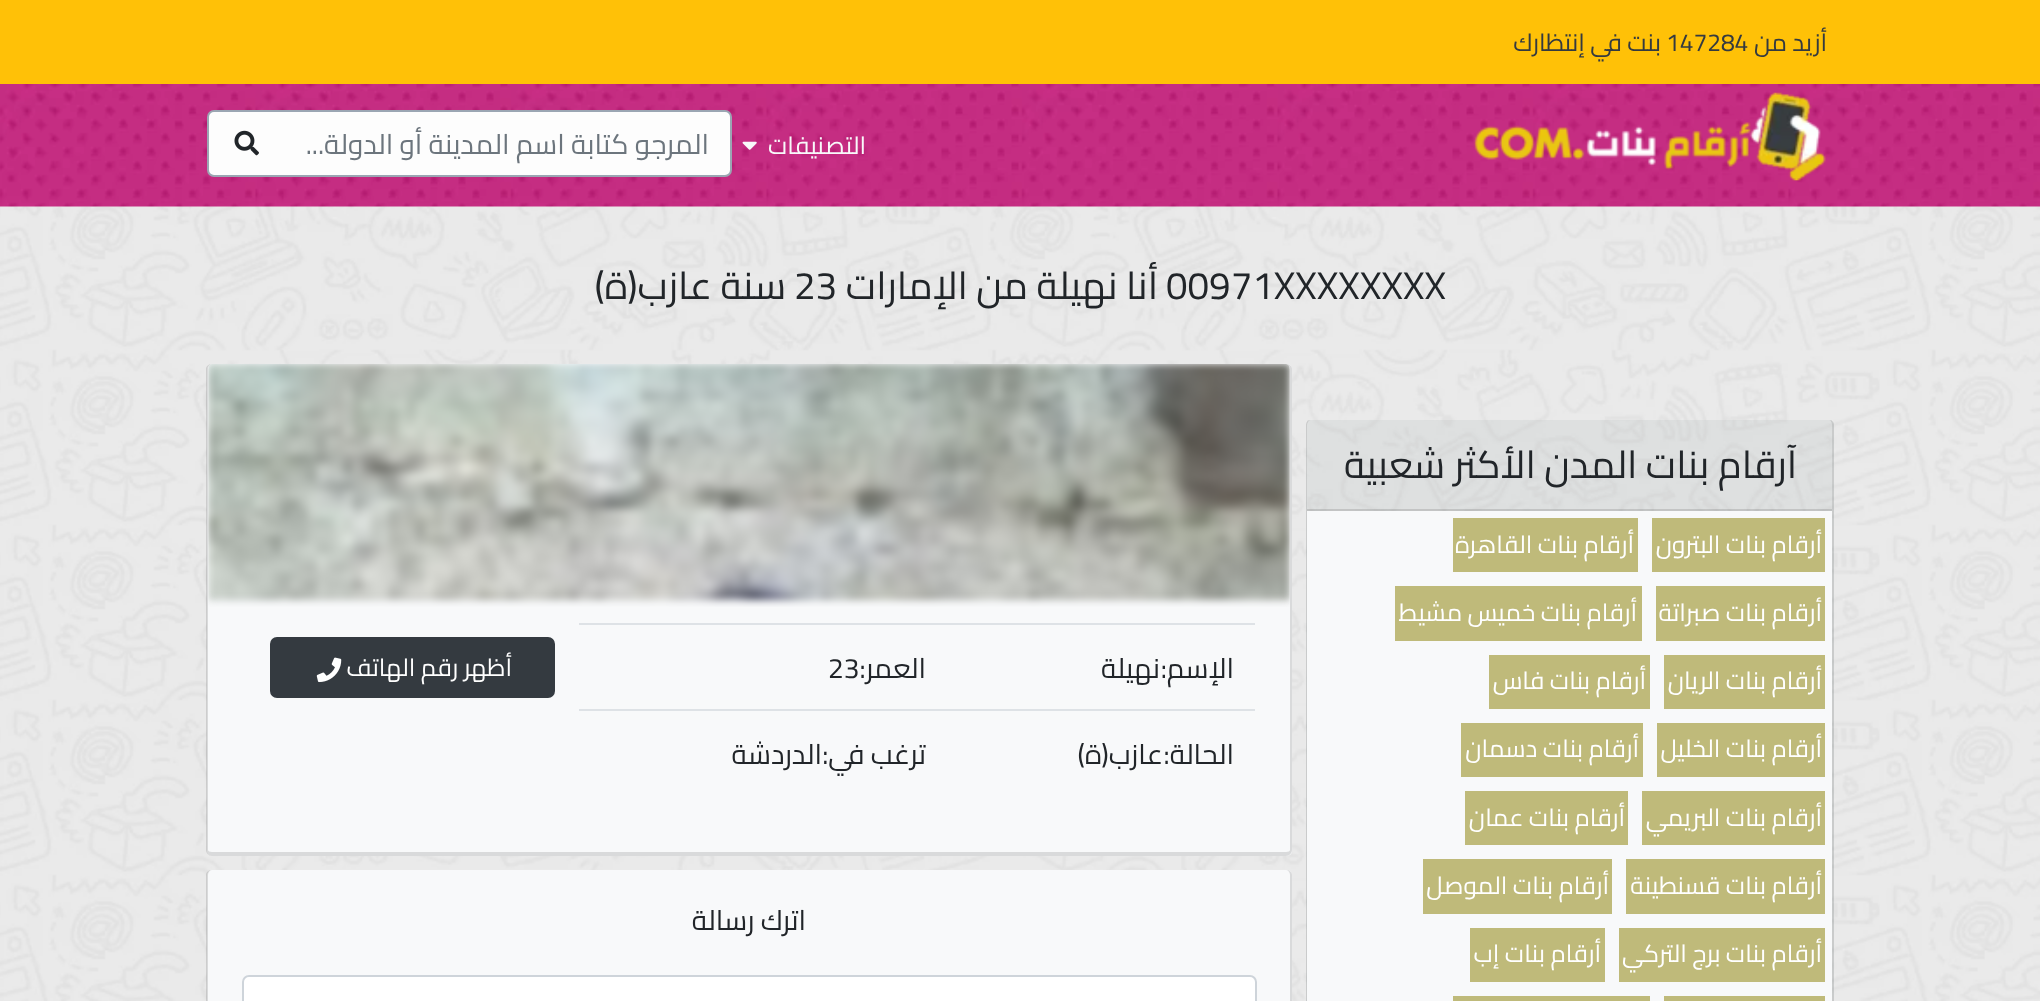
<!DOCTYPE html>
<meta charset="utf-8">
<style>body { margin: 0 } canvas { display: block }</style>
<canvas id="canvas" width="2040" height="1001"></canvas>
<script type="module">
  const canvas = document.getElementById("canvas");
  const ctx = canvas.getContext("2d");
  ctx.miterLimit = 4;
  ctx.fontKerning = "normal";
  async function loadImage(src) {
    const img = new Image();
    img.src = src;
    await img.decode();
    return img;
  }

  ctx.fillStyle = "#e2e2e2";
  ctx.fillRect(0, 0, 2040, 1001);
  ctx.drawImage(await loadImage("img1.png"), 0, 206, 2040, 795);
  ctx.fillStyle = "#ffc107";
  ctx.fillRect(0, 0, 2040, 84);
  ctx.direction = "rtl";
  ctx.font = "24.5px Cairo";
  ctx.fillStyle = "#343a40";
  ctx.fillText("أزيد من", 1827, 51);
  ctx.direction = "ltr";
  ctx.fillText("147284", 1666, 51);
  ctx.direction = "rtl";
  ctx.fillText("بنت في إنتظارك", 1661, 51);
  ctx.drawImage(await loadImage("img2.png"), 0, 84, 2040, 123);
  ctx.drawImage(await loadImage("img3.png"), 1473, 92, 353, 89);
  ctx.fillStyle = "#f8f9fa";
  ctx.fillText("التصنيفات", 866, 154);
  ctx.drawImage(await loadImage("img4.png"), 742, 141, 15, 9);
  ctx.fillStyle = "#fdfdfd";
  ctx.beginPath();
  ctx.roundRect(208, 111, 523, 65, 6);
  ctx.fill();
  ctx.strokeStyle = "#9ba6b3";
  ctx.lineWidth = 2;
  ctx.stroke();
  ctx.font = "28px Cairo";
  ctx.fillStyle = "#6c757d";
  ctx.fillText("المرجو كتابة اسم المدينة أو الدولة...", 709, 154);
  ctx.drawImage(await loadImage("img5.png"), 234, 130, 25, 26);
  ctx.direction = "ltr";
  ctx.font = "38.5px Cairo";
  ctx.fillStyle = "#212529";
  ctx.fillText("00971XXXXXXXX", 1166, 299);
  ctx.direction = "rtl";
  ctx.fillText("أنا نهيلة من الإمارات", 1158, 299);
  ctx.direction = "ltr";
  ctx.fillText("23", 794, 299);
  ctx.direction = "rtl";
  ctx.fillText("سنة عازب(ة)", 786, 299);
  ctx.fillStyle = "rgba(214, 224, 226, 0.2)";
  ctx.beginPath();
  ctx.roundRect(1306, 420, 528, 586, 5);
  ctx.fill();
  ctx.fillStyle = "rgba(0, 0, 0, 0.12)";
  ctx.beginPath();
  ctx.moveTo(1311, 420);
  ctx.lineTo(1829, 420);
  ctx.bezierCurveTo(1832, 420, 1834, 422, 1834, 425);
  ctx.lineTo(1834, 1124);
  ctx.bezierCurveTo(1834, 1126, 1832, 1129, 1829, 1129);
  ctx.lineTo(1311, 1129);
  ctx.bezierCurveTo(1308, 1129, 1306, 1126, 1306, 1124);
  ctx.lineTo(1306, 425);
  ctx.bezierCurveTo(1306, 422, 1308, 420, 1311, 420);
  ctx.closePath();
  ctx.moveTo(1311, 420);
  ctx.lineTo(1829, 420);
  ctx.bezierCurveTo(1831, 420, 1832, 422, 1832, 425);
  ctx.lineTo(1832, 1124);
  ctx.bezierCurveTo(1832, 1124, 1831, 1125, 1829, 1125);
  ctx.lineTo(1311, 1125);
  ctx.bezierCurveTo(1309, 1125, 1307, 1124, 1307, 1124);
  ctx.lineTo(1307, 425);
  ctx.bezierCurveTo(1307, 422, 1309, 420, 1311, 420);
  ctx.closePath();
  ctx.fill("evenodd");
  ctx.fillStyle = "rgba(0, 0, 0, 0.03)";
  ctx.fillRect(1307, 420, 525, 91);
  ctx.fillStyle = "rgba(0, 0, 0, 0.12)";
  ctx.fillRect(1307, 509, 525, 2);
  ctx.fillStyle = "#212529";
  ctx.fillText("آرقام بنات المدن الأكثر شعبية", 1797, 478);
  ctx.fillStyle = "#f8f9fa";
  ctx.fillRect(1307, 511, 525, 490);
  ctx.fillStyle = "#bfba7a";
  ctx.fillRect(1652, 518, 173, 54);
  ctx.font = "24.5px Cairo";
  ctx.fillStyle = "#ffffff";
  ctx.fillText("أرقام بنات البترون", 1822, 553);
  ctx.fillStyle = "#bfba7a";
  ctx.fillRect(1453, 518, 185, 54);
  ctx.fillStyle = "#ffffff";
  ctx.fillText("أرقام بنات القاهرة", 1634, 553);
  ctx.fillStyle = "#bfba7a";
  ctx.fillRect(1656, 586, 169, 55);
  ctx.fillStyle = "#ffffff";
  ctx.fillText("أرقام بنات صبراتة", 1822, 621);
  ctx.fillStyle = "#bfba7a";
  ctx.fillRect(1395, 586, 247, 55);
  ctx.fillStyle = "#ffffff";
  ctx.fillText("أرقام بنات خميس مشيط", 1637, 621);
  ctx.fillStyle = "#bfba7a";
  ctx.fillRect(1664, 655, 161, 54);
  ctx.fillStyle = "#ffffff";
  ctx.fillText("أرقام بنات الريان", 1822, 689);
  ctx.fillStyle = "#bfba7a";
  ctx.fillRect(1489, 655, 161, 54);
  ctx.fillStyle = "#ffffff";
  ctx.fillText("أرقام بنات فاس", 1646, 689);
  ctx.fillStyle = "#bfba7a";
  ctx.fillRect(1657, 723, 168, 54);
  ctx.fillStyle = "#ffffff";
  ctx.fillText("أرقام بنات الخليل", 1822, 757);
  ctx.fillStyle = "#bfba7a";
  ctx.fillRect(1461, 723, 182, 54);
  ctx.fillStyle = "#ffffff";
  ctx.fillText("أرقام بنات دسمان", 1639, 757);
  ctx.fillStyle = "#bfba7a";
  ctx.fillRect(1642, 791, 183, 54);
  ctx.fillStyle = "#ffffff";
  ctx.fillText("أرقام بنات البريمي", 1822, 826);
  ctx.fillStyle = "#bfba7a";
  ctx.fillRect(1465, 791, 163, 54);
  ctx.fillStyle = "#ffffff";
  ctx.fillText("أرقام بنات عمان", 1625, 826);
  ctx.fillStyle = "#bfba7a";
  ctx.fillRect(1626, 859, 199, 55);
  ctx.fillStyle = "#ffffff";
  ctx.fillText("أرقام بنات قسنطينة", 1822, 894);
  ctx.fillStyle = "#bfba7a";
  ctx.fillRect(1423, 859, 189, 55);
  ctx.fillStyle = "#ffffff";
  ctx.fillText("أرقام بنات الموصل", 1609, 894);
  ctx.fillStyle = "#bfba7a";
  ctx.fillRect(1619, 928, 206, 54);
  ctx.fillStyle = "#ffffff";
  ctx.fillText("أرقام بنات برج التركي", 1822, 962);
  ctx.fillStyle = "#bfba7a";
  ctx.fillRect(1470, 928, 135, 54);
  ctx.fillStyle = "#ffffff";
  ctx.fillText("أرقام بنات إب", 1601, 962);
  ctx.fillStyle = "#bfba7a";
  ctx.fillRect(1664, 996, 161, 5);
  ctx.fillRect(1453, 996, 197, 5);
  ctx.fillStyle = "#f8f9fa";
  ctx.beginPath();
  ctx.roundRect(207, 364, 1085, 492, 5);
  ctx.fill();
  ctx.fillStyle = "rgba(0, 0, 0, 0.12)";
  ctx.beginPath();
  ctx.moveTo(212, 364);
  ctx.lineTo(1286, 364);
  ctx.bezierCurveTo(1289, 364, 1292, 366, 1292, 369);
  ctx.lineTo(1292, 850);
  ctx.bezierCurveTo(1292, 853, 1289, 856, 1286, 856);
  ctx.lineTo(212, 856);
  ctx.bezierCurveTo(209, 856, 206, 853, 206, 850);
  ctx.lineTo(206, 369);
  ctx.bezierCurveTo(206, 366, 209, 364, 212, 364);
  ctx.closePath();
  ctx.moveTo(212, 364);
  ctx.lineTo(1286, 364);
  ctx.bezierCurveTo(1288, 364, 1290, 366, 1290, 369);
  ctx.lineTo(1290, 850);
  ctx.bezierCurveTo(1290, 851, 1288, 852, 1286, 852);
  ctx.lineTo(212, 852);
  ctx.bezierCurveTo(210, 852, 208, 851, 208, 850);
  ctx.lineTo(208, 369);
  ctx.bezierCurveTo(208, 366, 210, 364, 212, 364);
  ctx.closePath();
  ctx.fill("evenodd");
  ctx.drawImage(await loadImage("img6.png"), 208, 364, 1082, 243);
  ctx.font = "28px Cairo";
  ctx.fillStyle = "#212529";
  ctx.fillText("الإسم:", 1234, 678);
  ctx.fillText("نهيلة", 1160, 678);
  ctx.fillStyle = "#dee2e6";
  ctx.fillRect(579, 623, 676, 2);
  ctx.fillStyle = "#212529";
  ctx.fillText("العمر:", 926, 678);
  ctx.direction = "ltr";
  ctx.fillText("23", 828, 678);
  ctx.direction = "rtl";
  ctx.fillText("الحالة:", 1234, 764);
  ctx.fillText("عازب(ة)", 1163, 764);
  ctx.fillStyle = "#dee2e6";
  ctx.fillRect(579, 709, 676, 2);
  ctx.fillStyle = "#212529";
  ctx.fillText("ترغب في:", 926, 764);
  ctx.fillText("الدردشة", 822, 764);
  ctx.fillStyle = "#343a40";
  ctx.beginPath();
  ctx.roundRect(271, 638, 283, 59, 6);
  ctx.fill();
  ctx.strokeStyle = "#343a40";
  ctx.stroke();
  ctx.font = "24.5px Cairo";
  ctx.fillStyle = "#ffffff";
  ctx.fillText("أظهر رقم الهاتف", 512, 676);
  ctx.drawImage(await loadImage("img7.png"), 316, 657, 26, 26);
  ctx.fillStyle = "#f8f9fa";
  ctx.beginPath();
  ctx.roundRect(207, 870, 1085, 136, 5);
  ctx.fill();
  ctx.fillStyle = "rgba(0, 0, 0, 0.12)";
  ctx.beginPath();
  ctx.moveTo(212, 870);
  ctx.lineTo(1286, 870);
  ctx.bezierCurveTo(1289, 870, 1292, 872, 1292, 875);
  ctx.lineTo(1292, 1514);
  ctx.bezierCurveTo(1292, 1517, 1289, 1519, 1286, 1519);
  ctx.lineTo(212, 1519);
  ctx.bezierCurveTo(209, 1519, 206, 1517, 206, 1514);
  ctx.lineTo(206, 875);
  ctx.bezierCurveTo(206, 872, 209, 870, 212, 870);
  ctx.closePath();
  ctx.moveTo(212, 870);
  ctx.lineTo(1286, 870);
  ctx.bezierCurveTo(1288, 870, 1290, 872, 1290, 875);
  ctx.lineTo(1290, 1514);
  ctx.bezierCurveTo(1290, 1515, 1288, 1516, 1286, 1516);
  ctx.lineTo(212, 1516);
  ctx.bezierCurveTo(210, 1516, 208, 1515, 208, 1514);
  ctx.lineTo(208, 875);
  ctx.bezierCurveTo(208, 872, 210, 870, 212, 870);
  ctx.closePath();
  ctx.fill("evenodd");
  ctx.font = "28px Cairo";
  ctx.fillStyle = "#212529";
  ctx.fillText("اترك رسالة", 806, 930);
  ctx.fillStyle = "#ffffff";
  ctx.beginPath();
  ctx.roundRect(243, 977, 1012, 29, 5);
  ctx.fill();
  ctx.beginPath();
  ctx.roundRect(243, 976, 1013, 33, 6);
  ctx.strokeStyle = "#ced4da";
  ctx.stroke();
</script>
